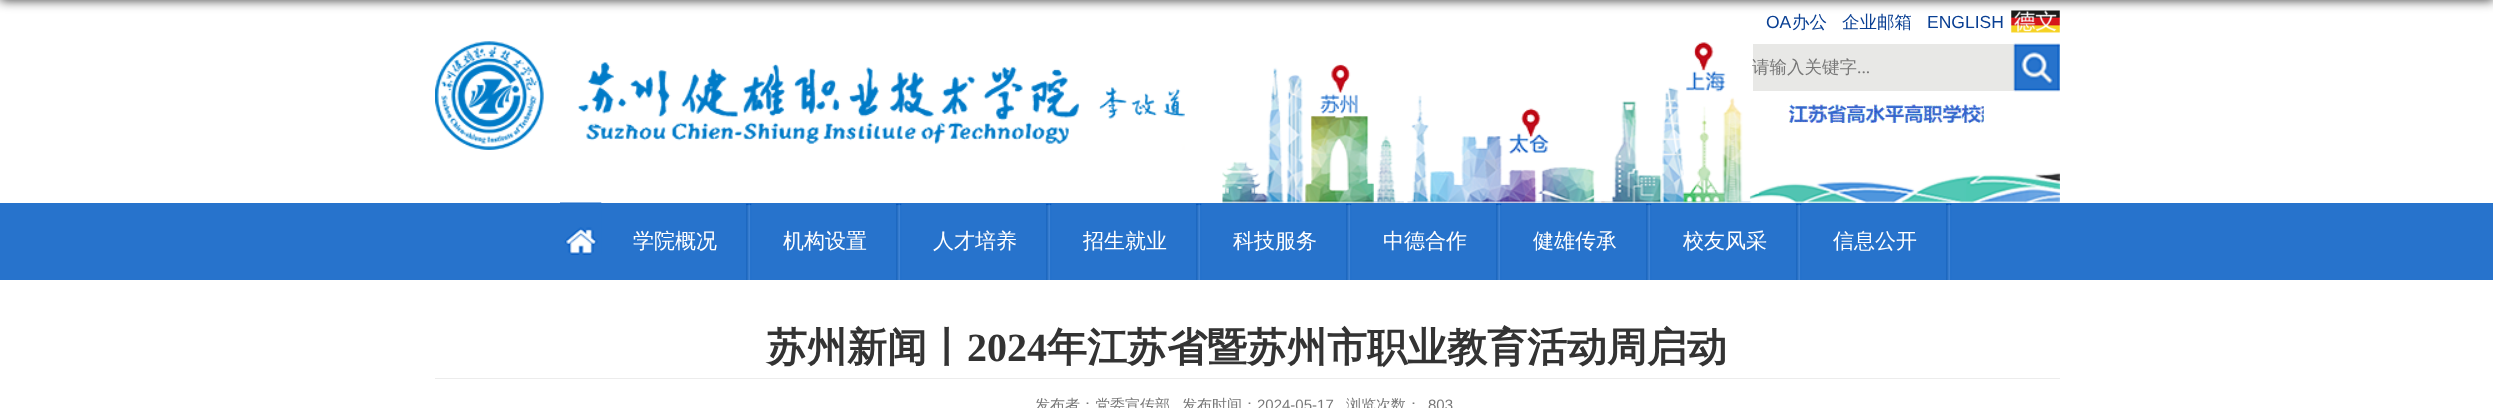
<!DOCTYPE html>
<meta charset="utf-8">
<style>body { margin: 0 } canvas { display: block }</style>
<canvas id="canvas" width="2493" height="408"></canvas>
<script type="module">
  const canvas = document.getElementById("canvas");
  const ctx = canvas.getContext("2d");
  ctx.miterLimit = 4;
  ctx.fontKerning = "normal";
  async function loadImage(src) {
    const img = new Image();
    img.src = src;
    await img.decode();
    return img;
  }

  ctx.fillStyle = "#ffffff";
  ctx.fillRect(0, 0, 2493, 408);
  ctx.drawImage(await loadImage("img3.png"), 2011, 10, 49, 23);
  ctx.fillStyle = "rgba(0, 0, 0, 0.8)";
  ctx.filter = "blur(6px)";
  ctx.beginPath();
  ctx.rect(0, -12, 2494, 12);
  ctx.fill();
  ctx.filter = "none";
  ctx.drawImage(await loadImage("img1.png"), 435, 41, 750, 109);
  ctx.drawImage(await loadImage("img2.png"), 1222, 42, 838, 161);
  ctx.font = "17.5px Liberation Sans";
  ctx.fillStyle = "#093f93";
  ctx.fillText("OA", 1766, 28);
  ctx.font = "500 17.5px WenQuanYi Zen Hei";
  ctx.fillText("办公", 1792, 28);
  ctx.fillText("企业邮箱", 1842, 28);
  ctx.font = "17.5px Liberation Sans";
  ctx.fillText("ENGLISH", 1927, 28);
  ctx.fillStyle = "#e8e8e6";
  ctx.fillRect(1753, 44, 261, 47);
  ctx.font = "500 17.5px WenQuanYi Zen Hei";
  ctx.fillStyle = "#787878";
  ctx.fillText("请输入关键字", 1752, 73);
  ctx.font = "17.5px Liberation Serif";
  ctx.fillText("...", 1857, 73);
  ctx.drawImage(await loadImage("img4.png"), 2013, 43, 47, 49);
  ctx.drawImage(await loadImage("img5.png"), 1788, 104, 196, 20);
  ctx.fillStyle = "#2773cc";
  ctx.fillRect(0, 203, 2493, 77);
  ctx.drawImage(await loadImage("img6.png"), 560, 202, 42, 53);
  ctx.drawImage(await loadImage("img7.png"), 746, 203, 6, 77);
  ctx.font = "500 21px WenQuanYi Zen Hei";
  ctx.fillStyle = "#ffffff";
  ctx.fillText("学院概况", 633, 248);
  ctx.drawImage(await loadImage("img7.png"), 896, 203, 6, 77);
  ctx.fillText("机构设置", 783, 248);
  ctx.drawImage(await loadImage("img7.png"), 1046, 203, 6, 77);
  ctx.fillText("人才培养", 933, 248);
  ctx.drawImage(await loadImage("img7.png"), 1196, 203, 6, 77);
  ctx.fillText("招生就业", 1083, 248);
  ctx.drawImage(await loadImage("img7.png"), 1346, 203, 6, 77);
  ctx.fillText("科技服务", 1233, 248);
  ctx.drawImage(await loadImage("img7.png"), 1496, 203, 6, 77);
  ctx.fillText("中德合作", 1383, 248);
  ctx.drawImage(await loadImage("img7.png"), 1646, 203, 6, 77);
  ctx.fillText("健雄传承", 1533, 248);
  ctx.drawImage(await loadImage("img7.png"), 1796, 203, 6, 77);
  ctx.fillText("校友风采", 1683, 248);
  ctx.drawImage(await loadImage("img7.png"), 1946, 203, 6, 77);
  ctx.fillText("信息公开", 1833, 248);
  ctx.font = "bold 40px WenQuanYi Zen Hei";
  ctx.fillStyle = "#333333";
  ctx.fillText("苏州新闻丨", 767, 361);
  ctx.font = "bold 40px Liberation Serif";
  ctx.fillText("2024", 967, 361);
  ctx.font = "bold 40px WenQuanYi Zen Hei";
  ctx.fillText("年江苏省暨苏州市职业教育活动周启动", 1047, 361);
  ctx.fillStyle = "#ececec";
  ctx.fillRect(435, 378, 1625, 1);
  ctx.font = "500 15px WenQuanYi Zen Hei";
  ctx.fillStyle = "#787878";
  ctx.fillText("发布者：党委宣传部", 1035, 410);
  ctx.fillText("发布时间：", 1182, 410);
  ctx.font = "15px Liberation Sans";
  ctx.fillText("2024-05-17", 1257, 410);
  ctx.font = "500 15px WenQuanYi Zen Hei";
  ctx.fillText("浏览次数：", 1346, 410);
  ctx.font = "15px Liberation Sans";
  ctx.fillText("803", 1428, 410);
</script>
